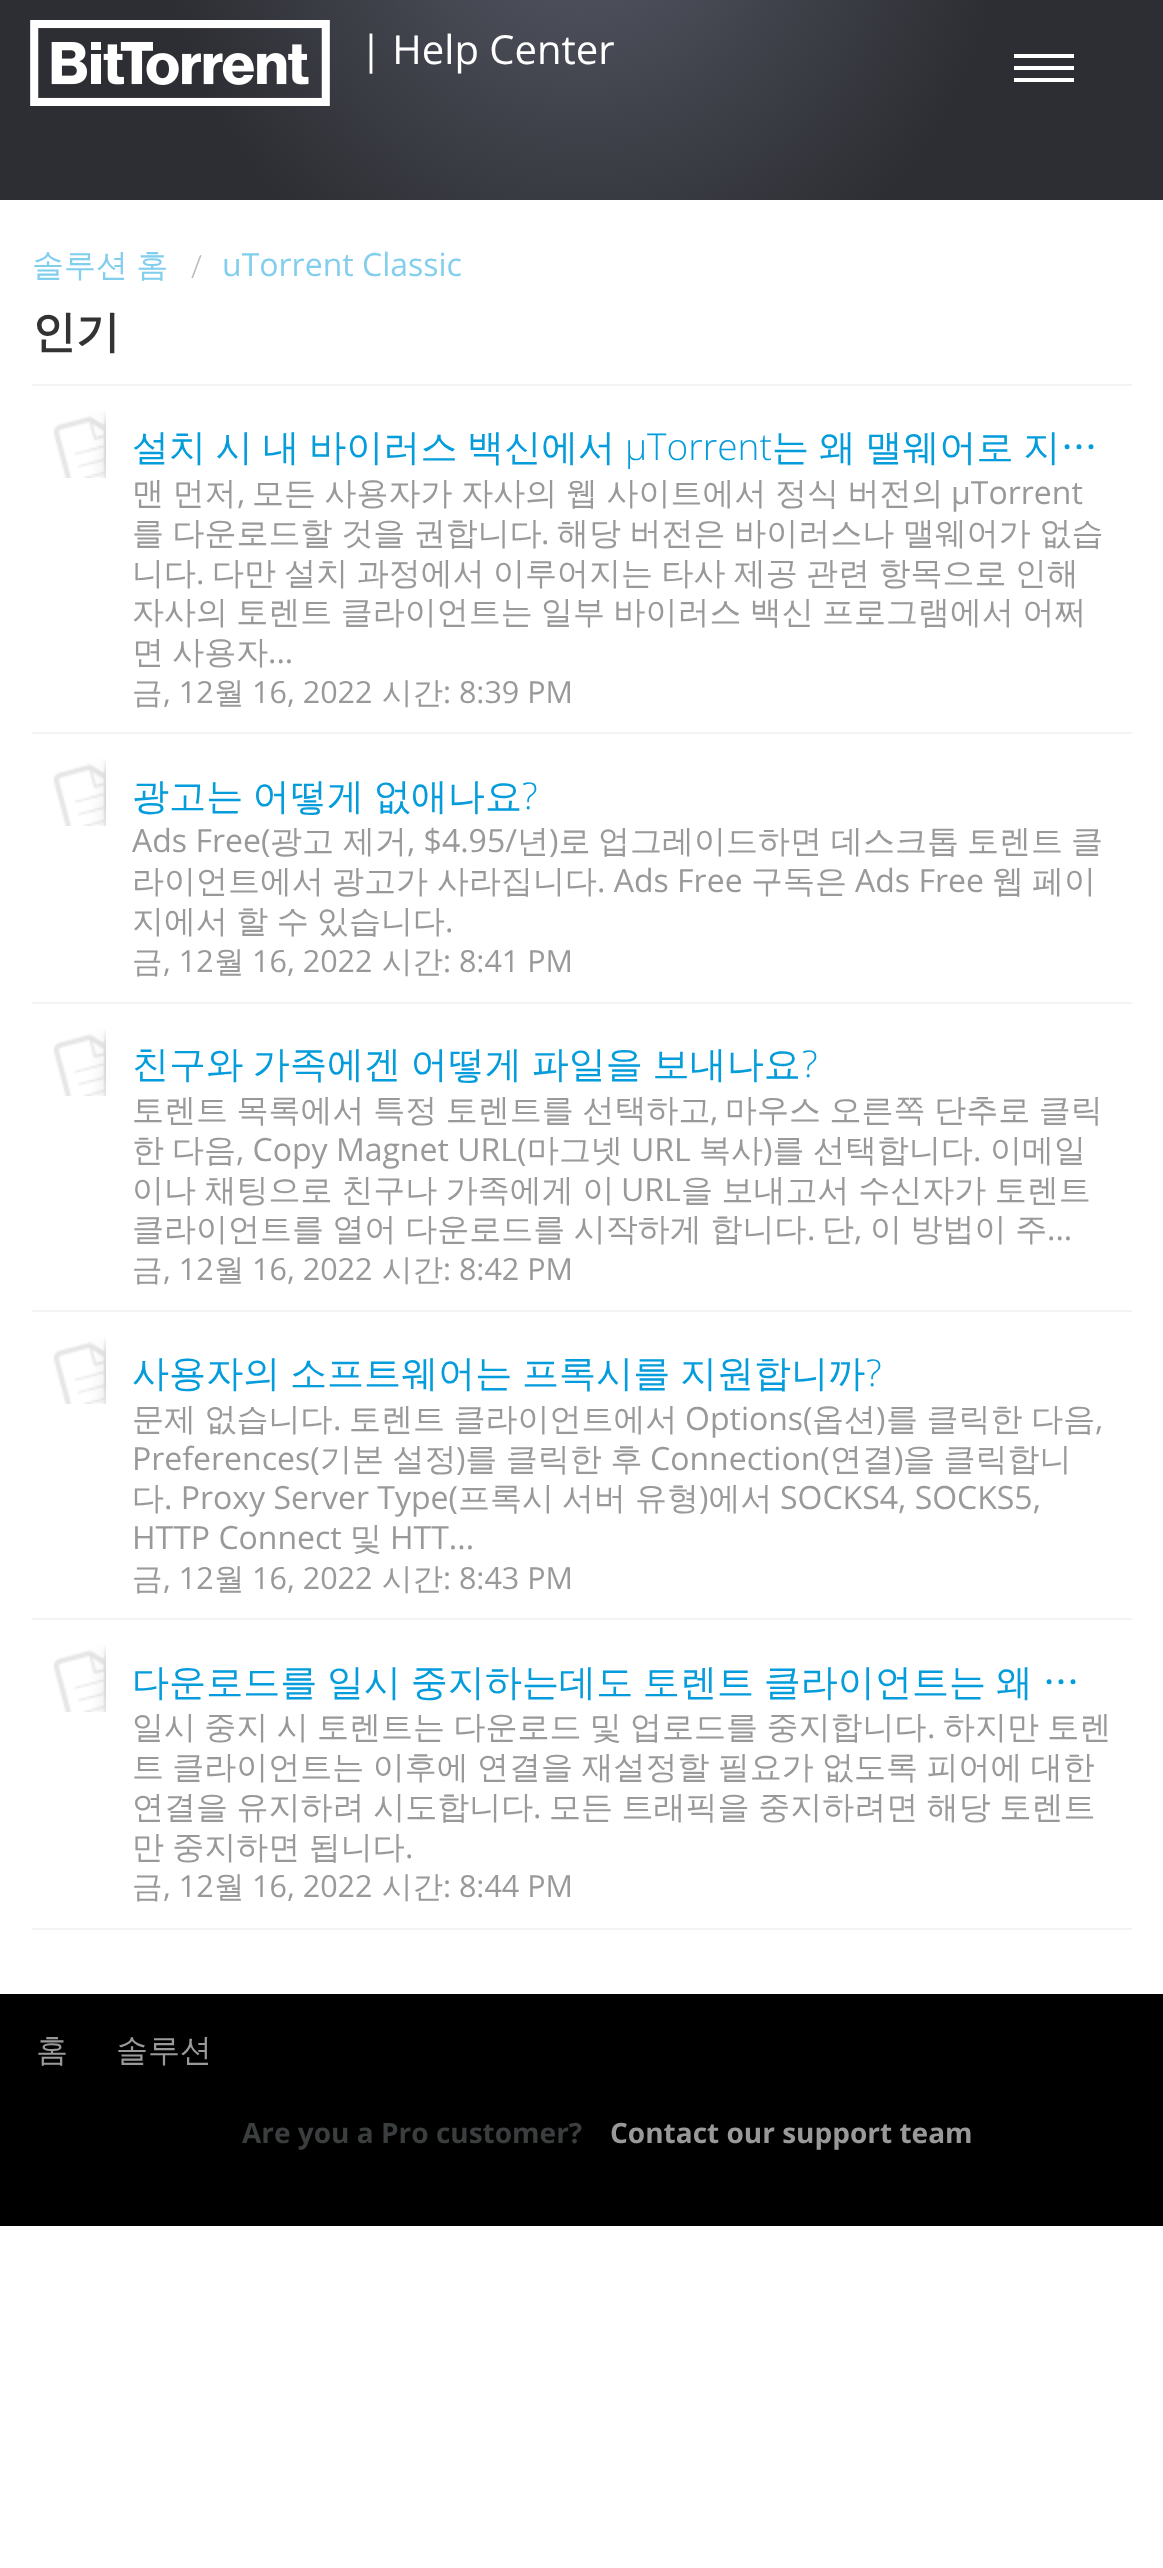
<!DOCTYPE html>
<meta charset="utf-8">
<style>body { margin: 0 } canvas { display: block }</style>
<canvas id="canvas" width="1163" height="2568"></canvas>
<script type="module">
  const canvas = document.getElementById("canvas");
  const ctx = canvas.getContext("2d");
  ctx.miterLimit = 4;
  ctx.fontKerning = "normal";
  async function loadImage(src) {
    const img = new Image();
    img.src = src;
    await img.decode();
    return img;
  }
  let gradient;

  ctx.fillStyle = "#ffffff";
  ctx.fillRect(0, 0, 1163, 2568);
  gradient = ctx.createRadialGradient(582, -90, 0, 582, -90, 701);
  gradient.addColorStop(0, "#545764");
  gradient.addColorStop(0.6, "#2d2e33");
  ctx.fillStyle = gradient;
  ctx.fillRect(0, 0, 1163, 200);
  ctx.drawImage(await loadImage("img1.png"), 30, 20, 300, 86);
  ctx.font = "40px Open Sans";
  ctx.fillStyle = "#ffffff";
  ctx.fillText("| Help Center", 360, 64);
  ctx.fillRect(1014, 78, 60, 4);
  ctx.fillRect(1014, 54, 60, 4);
  ctx.fillRect(1014, 66, 60, 4);
  ctx.wordSpacing = "-1.25px";
  ctx.font = "500 32px WenQuanYi Zen Hei";
  ctx.fillStyle = "#82ceed";
  ctx.fillText("솔루션 홈", 32, 276);
  ctx.wordSpacing = "0px";
  ctx.font = "300 32px Open Sans";
  ctx.fillStyle = "#bbbbbb";
  ctx.fillText("/", 191, 278);
  ctx.font = "32px Open Sans";
  ctx.fillStyle = "#82ceed";
  ctx.fillText("uTorrent Classic", 222, 276);
  ctx.font = "bold 44px WenQuanYi Zen Hei";
  ctx.fillStyle = "#333333";
  ctx.fillText("인기", 32, 347);
  ctx.fillStyle = "#f3f3f3";
  ctx.fillRect(32, 1928, 1100, 2);
  ctx.fillRect(32, 384, 1100, 2);
  ctx.drawImage(await loadImage("img2.png"), 53, 411, 53, 67);
  ctx.wordSpacing = "-1.5px";
  ctx.font = "500 37.1px WenQuanYi Zen Hei";
  ctx.fillStyle = "#049cdb";
  ctx.fillText("설치 시 내 바이러스 백신에서", 132, 460);
  ctx.wordSpacing = "0px";
  ctx.font = "300 37.1px Open Sans";
  ctx.fillText("µTorrent", 625, 460);
  ctx.wordSpacing = "-1.5px";
  ctx.font = "500 37.1px WenQuanYi Zen Hei";
  ctx.fillText("는 왜 맬웨어로 지…", 772, 460);
  ctx.wordSpacing = "-1px";
  ctx.font = "500 32px WenQuanYi Zen Hei";
  ctx.fillStyle = "#999999";
  ctx.fillText("맨 먼저", 132, 504);
  ctx.wordSpacing = "0px";
  ctx.font = "32px Open Sans";
  ctx.fillText(",", 237, 504);
  ctx.wordSpacing = "-1px";
  ctx.font = "500 32px WenQuanYi Zen Hei";
  ctx.fillText("모든 사용자가 자사의 웹 사이트에서 정식 버전의", 252, 504);
  ctx.wordSpacing = "0px";
  ctx.font = "32px Open Sans";
  ctx.fillText("µTorrent", 951, 504);
  ctx.wordSpacing = "-1px";
  ctx.font = "500 32px WenQuanYi Zen Hei";
  ctx.fillText("를 다운로드할 것을 권합니다", 132, 544);
  ctx.wordSpacing = "0px";
  ctx.font = "32px Open Sans";
  ctx.fillText(".", 541, 544);
  ctx.wordSpacing = "-1px";
  ctx.font = "500 32px WenQuanYi Zen Hei";
  ctx.fillText("해당 버전은 바이러스나 맬웨어가 없습", 557, 544);
  ctx.wordSpacing = "0px";
  ctx.fillText("니다", 132, 584);
  ctx.font = "32px Open Sans";
  ctx.fillText(".", 196, 584);
  ctx.wordSpacing = "-1.25px";
  ctx.font = "500 32px WenQuanYi Zen Hei";
  ctx.fillText("다만 설치 과정에서 이루어지는 타사 제공 관련 항목으로 인해", 212, 584);
  ctx.fillText("자사의 토렌트 클라이언트는 일부 바이러스 백신 프로그램에서 어쩌", 132, 623);
  ctx.fillText("면 사용자", 132, 663);
  ctx.wordSpacing = "0px";
  ctx.font = "32px Open Sans";
  ctx.fillText("...", 268, 663);
  ctx.font = "500 30.5px WenQuanYi Zen Hei";
  ctx.fillText("금", 132, 703);
  ctx.font = "30.5px Open Sans";
  ctx.fillText(", 12", 163, 703);
  ctx.font = "500 30.5px WenQuanYi Zen Hei";
  ctx.fillText("월", 214, 703);
  ctx.font = "30.5px Open Sans";
  ctx.fillText("16, 2022", 252, 703);
  ctx.font = "500 30.5px WenQuanYi Zen Hei";
  ctx.fillText("시간", 382, 703);
  ctx.font = "30.5px Open Sans";
  ctx.fillText(": 8:39 PM", 443, 703);
  ctx.fillStyle = "#f3f3f3";
  ctx.fillRect(32, 732, 1100, 2);
  ctx.drawImage(await loadImage("img2.png"), 53, 759, 53, 67);
  ctx.wordSpacing = "-1.5px";
  ctx.font = "500 37.1px WenQuanYi Zen Hei";
  ctx.fillStyle = "#049cdb";
  ctx.fillText("광고는 어떻게 없애나요", 132, 809);
  ctx.wordSpacing = "0px";
  ctx.font = "300 37.1px Open Sans";
  ctx.fillText("?", 522, 809);
  ctx.font = "32px Open Sans";
  ctx.fillStyle = "#999999";
  ctx.fillText("Ads Free(", 132, 852);
  ctx.font = "500 32px WenQuanYi Zen Hei";
  ctx.fillText("광고", 270, 852);
  ctx.fillText("제거", 343, 852);
  ctx.font = "32px Open Sans";
  ctx.fillText(", $4.95/", 407, 852);
  ctx.font = "500 32px WenQuanYi Zen Hei";
  ctx.fillText("년 로", 517, 852);
  ctx.fillText("업그레이드하면", 598, 852);
  ctx.fillText("데스크톱", 831, 852);
  ctx.fillText("토렌트", 967, 852);
  ctx.font = "32px Open Sans";
  ctx.fillText(")", 549, 852);
  ctx.font = "500 32px WenQuanYi Zen Hei";
  ctx.fillText("클", 1071, 852);
  ctx.fillText("라이언트에서", 132, 892);
  ctx.fillText("광고가", 332, 892);
  ctx.fillText("사라집니다", 437, 892);
  ctx.font = "32px Open Sans";
  ctx.fillText(". Ads Free", 597, 892);
  ctx.font = "500 32px WenQuanYi Zen Hei";
  ctx.fillText("구독은", 751, 892);
  ctx.font = "32px Open Sans";
  ctx.fillText("Ads Free", 855, 892);
  ctx.font = "500 32px WenQuanYi Zen Hei";
  ctx.fillText("웹", 992, 892);
  ctx.fillText("페이", 1032, 892);
  ctx.wordSpacing = "-1.25px";
  ctx.fillText("지에서 할 수 있습니다", 132, 932);
  ctx.wordSpacing = "0px";
  ctx.font = "32px Open Sans";
  ctx.fillText(".", 445, 932);
  ctx.font = "500 30.5px WenQuanYi Zen Hei";
  ctx.fillText("금", 132, 972);
  ctx.font = "30.5px Open Sans";
  ctx.fillText(", 12", 163, 972);
  ctx.font = "500 30.5px WenQuanYi Zen Hei";
  ctx.fillText("월", 214, 972);
  ctx.font = "30.5px Open Sans";
  ctx.fillText("16, 2022", 252, 972);
  ctx.font = "500 30.5px WenQuanYi Zen Hei";
  ctx.fillText("시간", 382, 972);
  ctx.font = "30.5px Open Sans";
  ctx.fillText(": 8:41 PM", 443, 972);
  ctx.fillStyle = "#f3f3f3";
  ctx.fillRect(32, 1002, 1100, 2);
  ctx.drawImage(await loadImage("img2.png"), 53, 1029, 53, 67);
  ctx.wordSpacing = "-1.5px";
  ctx.font = "500 37.1px WenQuanYi Zen Hei";
  ctx.fillStyle = "#049cdb";
  ctx.fillText("친구와 가족에겐 어떻게 파일을 보내나요", 132, 1077);
  ctx.wordSpacing = "0px";
  ctx.font = "300 37.1px Open Sans";
  ctx.fillText("?", 802, 1077);
  ctx.wordSpacing = "-1px";
  ctx.font = "500 32px WenQuanYi Zen Hei";
  ctx.fillStyle = "#999999";
  ctx.fillText("토렌트 목록에서 특정 토렌트를 선택하고", 132, 1121);
  ctx.wordSpacing = "0px";
  ctx.font = "32px Open Sans";
  ctx.fillText(",", 710, 1121);
  ctx.wordSpacing = "-1px";
  ctx.font = "500 32px WenQuanYi Zen Hei";
  ctx.fillText("마우스 오른쪽 단추로 클릭", 725, 1121);
  ctx.wordSpacing = "0px";
  ctx.fillText("한", 132, 1161);
  ctx.fillText("다음", 172, 1161);
  ctx.font = "32px Open Sans";
  ctx.fillText(", Copy Magnet URL(", 236, 1161);
  ctx.font = "500 32px WenQuanYi Zen Hei";
  ctx.fillText("마그넷", 527, 1161);
  ctx.font = "32px Open Sans";
  ctx.fillText("URL", 631, 1161);
  ctx.font = "500 32px WenQuanYi Zen Hei";
  ctx.fillText("복사 를", 699, 1161);
  ctx.fillText("선택합니다", 813, 1161);
  ctx.fillText("이메일", 990, 1161);
  ctx.font = "32px Open Sans";
  ctx.fillText(")", 763, 1161);
  ctx.fillText(".", 973, 1161);
  ctx.wordSpacing = "-1px";
  ctx.font = "500 32px WenQuanYi Zen Hei";
  ctx.fillText("이나 채팅으로 친구나 가족에게 이", 132, 1201);
  ctx.wordSpacing = "0px";
  ctx.font = "32px Open Sans";
  ctx.fillText("URL", 621, 1201);
  ctx.wordSpacing = "-1px";
  ctx.font = "500 32px WenQuanYi Zen Hei";
  ctx.fillText("을 보내고서 수신자가 토렌트", 681, 1201);
  ctx.fillText("클라이언트를 열어 다운로드를 시작하게 합니다", 132, 1240);
  ctx.wordSpacing = "0px";
  ctx.font = "32px Open Sans";
  ctx.fillText(".", 807, 1240);
  ctx.font = "500 32px WenQuanYi Zen Hei";
  ctx.fillText("단", 822, 1240);
  ctx.font = "32px Open Sans";
  ctx.fillText(",", 854, 1240);
  ctx.wordSpacing = "-1px";
  ctx.font = "500 32px WenQuanYi Zen Hei";
  ctx.fillText("이 방법이 주", 870, 1240);
  ctx.wordSpacing = "0px";
  ctx.font = "32px Open Sans";
  ctx.fillText("...", 1047, 1240);
  ctx.font = "500 30.5px WenQuanYi Zen Hei";
  ctx.fillText("금", 132, 1280);
  ctx.font = "30.5px Open Sans";
  ctx.fillText(", 12", 163, 1280);
  ctx.font = "500 30.5px WenQuanYi Zen Hei";
  ctx.fillText("월", 214, 1280);
  ctx.font = "30.5px Open Sans";
  ctx.fillText("16, 2022", 252, 1280);
  ctx.font = "500 30.5px WenQuanYi Zen Hei";
  ctx.fillText("시간", 382, 1280);
  ctx.font = "30.5px Open Sans";
  ctx.fillText(": 8:42 PM", 443, 1280);
  ctx.fillStyle = "#f3f3f3";
  ctx.fillRect(32, 1310, 1100, 2);
  ctx.drawImage(await loadImage("img2.png"), 53, 1337, 53, 67);
  ctx.wordSpacing = "-1.5px";
  ctx.font = "500 37.1px WenQuanYi Zen Hei";
  ctx.fillStyle = "#049cdb";
  ctx.fillText("사용자의 소프트웨어는 프록시를 지원합니까", 132, 1386);
  ctx.wordSpacing = "0px";
  ctx.font = "300 37.1px Open Sans";
  ctx.fillText("?", 866, 1386);
  ctx.wordSpacing = "-1px";
  ctx.font = "500 32px WenQuanYi Zen Hei";
  ctx.fillStyle = "#999999";
  ctx.fillText("문제 없습니다", 132, 1430);
  ctx.wordSpacing = "0px";
  ctx.font = "32px Open Sans";
  ctx.fillText(".", 333, 1430);
  ctx.wordSpacing = "-1px";
  ctx.font = "500 32px WenQuanYi Zen Hei";
  ctx.fillText("토렌트 클라이언트에서", 349, 1430);
  ctx.wordSpacing = "0px";
  ctx.font = "32px Open Sans";
  ctx.fillText("Options(", 685, 1430);
  ctx.font = "500 32px WenQuanYi Zen Hei";
  ctx.fillText("옵션", 812, 1430);
  ctx.font = "32px Open Sans";
  ctx.fillText(")", 876, 1430);
  ctx.wordSpacing = "-1px";
  ctx.font = "500 32px WenQuanYi Zen Hei";
  ctx.fillText("를 클릭한 다음", 886, 1430);
  ctx.wordSpacing = "0px";
  ctx.font = "32px Open Sans";
  ctx.fillText(",", 1095, 1430);
  ctx.fillText("Preferences(", 132, 1470);
  ctx.wordSpacing = "-1px";
  ctx.font = "500 32px WenQuanYi Zen Hei";
  ctx.fillText("기본 설정 를 클릭한 후", 320, 1470);
  ctx.wordSpacing = "0px";
  ctx.font = "32px Open Sans";
  ctx.fillText("Connection(", 650, 1470);
  ctx.font = "500 32px WenQuanYi Zen Hei";
  ctx.fillText("연결", 830, 1470);
  ctx.wordSpacing = "-1px";
  ctx.fillText("을 클릭합니", 903, 1470);
  ctx.wordSpacing = "0px";
  ctx.font = "32px Open Sans";
  ctx.fillText(")", 456, 1470);
  ctx.fillText(")", 894, 1470);
  ctx.font = "500 32px WenQuanYi Zen Hei";
  ctx.fillText("다", 132, 1509);
  ctx.font = "32px Open Sans";
  ctx.fillText(". Proxy Server Type(", 164, 1509);
  ctx.font = "500 32px WenQuanYi Zen Hei";
  ctx.fillText("프록시", 458, 1509);
  ctx.fillText("서버", 562, 1509);
  ctx.fillText("유형 에서", 635, 1509);
  ctx.font = "32px Open Sans";
  ctx.fillText("SOCKS4, SOCKS5,", 780, 1509);
  ctx.fillText(")", 699, 1509);
  ctx.fillText("HTTP Connect", 132, 1549);
  ctx.font = "500 32px WenQuanYi Zen Hei";
  ctx.fillText("및", 350, 1549);
  ctx.font = "32px Open Sans";
  ctx.fillText("HTT...", 390, 1549);
  ctx.font = "500 30.5px WenQuanYi Zen Hei";
  ctx.fillText("금", 132, 1589);
  ctx.font = "30.5px Open Sans";
  ctx.fillText(", 12", 163, 1589);
  ctx.font = "500 30.5px WenQuanYi Zen Hei";
  ctx.fillText("월", 214, 1589);
  ctx.font = "30.5px Open Sans";
  ctx.fillText("16, 2022", 252, 1589);
  ctx.font = "500 30.5px WenQuanYi Zen Hei";
  ctx.fillText("시간", 382, 1589);
  ctx.font = "30.5px Open Sans";
  ctx.fillText(": 8:43 PM", 443, 1589);
  ctx.fillStyle = "#f3f3f3";
  ctx.fillRect(32, 1618, 1100, 2);
  ctx.drawImage(await loadImage("img2.png"), 53, 1645, 53, 67);
  ctx.wordSpacing = "-1.5px";
  ctx.font = "500 37.1px WenQuanYi Zen Hei";
  ctx.fillStyle = "#049cdb";
  ctx.fillText("다운로드를 일시 중지하는데도 토렌트 클라이언트는 왜 …", 132, 1695);
  ctx.wordSpacing = "-1.25px";
  ctx.font = "500 32px WenQuanYi Zen Hei";
  ctx.fillStyle = "#999999";
  ctx.fillText("일시 중지 시 토렌트는 다운로드 및 업로드를 중지합니다", 132, 1738);
  ctx.wordSpacing = "0px";
  ctx.font = "32px Open Sans";
  ctx.fillText(".", 927, 1738);
  ctx.wordSpacing = "-1.25px";
  ctx.font = "500 32px WenQuanYi Zen Hei";
  ctx.fillText("하지만 토렌", 943, 1738);
  ctx.fillText("트 클라이언트는 이후에 연결을 재설정할 필요가 없도록 피어에 대한", 132, 1778);
  ctx.wordSpacing = "-1px";
  ctx.fillText("연결을 유지하려 시도합니다", 132, 1818);
  ctx.wordSpacing = "0px";
  ctx.font = "32px Open Sans";
  ctx.fillText(".", 533, 1818);
  ctx.wordSpacing = "-1px";
  ctx.font = "500 32px WenQuanYi Zen Hei";
  ctx.fillText("모든 트래픽을 중지하려면 해당 토렌트", 549, 1818);
  ctx.wordSpacing = "-1.25px";
  ctx.fillText("만 중지하면 됩니다", 132, 1858);
  ctx.wordSpacing = "0px";
  ctx.font = "32px Open Sans";
  ctx.fillText(".", 405, 1858);
  ctx.font = "500 30.5px WenQuanYi Zen Hei";
  ctx.fillText("금", 132, 1897);
  ctx.font = "30.5px Open Sans";
  ctx.fillText(", 12", 163, 1897);
  ctx.font = "500 30.5px WenQuanYi Zen Hei";
  ctx.fillText("월", 214, 1897);
  ctx.font = "30.5px Open Sans";
  ctx.fillText("16, 2022", 252, 1897);
  ctx.font = "500 30.5px WenQuanYi Zen Hei";
  ctx.fillText("시간", 382, 1897);
  ctx.font = "30.5px Open Sans";
  ctx.fillText(": 8:44 PM", 443, 1897);
  ctx.fillStyle = "#000000";
  ctx.fillRect(0, 1994, 1163, 232);
  ctx.font = "500 32px WenQuanYi Zen Hei";
  ctx.fillStyle = "#999999";
  ctx.fillText("홈", 36, 2061);
  ctx.fillText("솔루션", 116, 2061);
  ctx.font = "bold 28px Open Sans";
  ctx.fillStyle = "#3a3e3e";
  ctx.fillText("Are you a Pro customer?", 242, 2143);
  ctx.fillStyle = "#999999";
  ctx.fillText("Contact our support team", 610, 2143);
</script>
